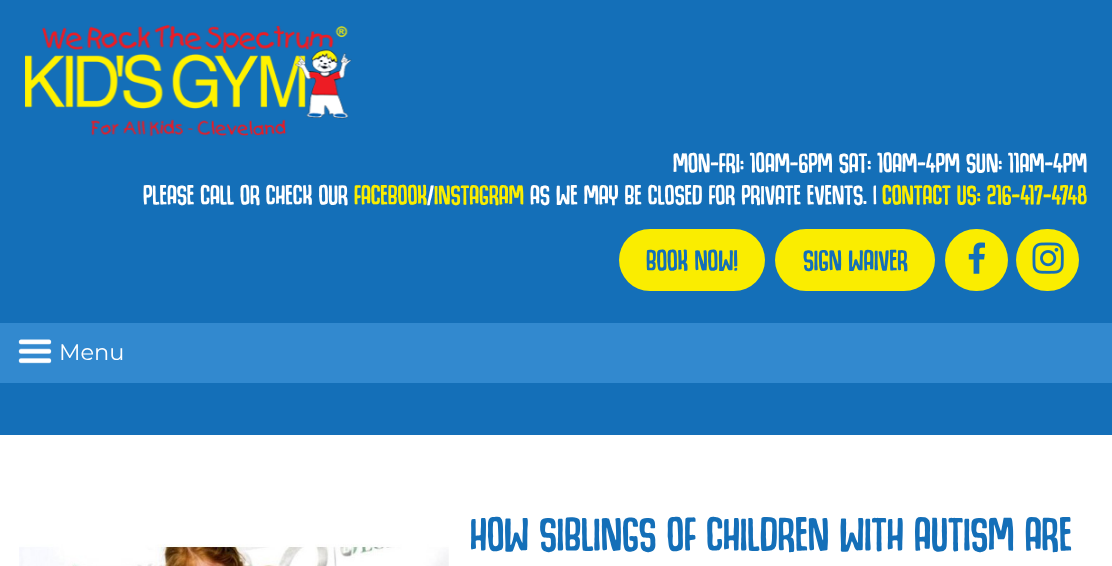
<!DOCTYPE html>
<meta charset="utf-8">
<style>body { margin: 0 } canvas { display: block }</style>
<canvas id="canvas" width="1112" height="566"></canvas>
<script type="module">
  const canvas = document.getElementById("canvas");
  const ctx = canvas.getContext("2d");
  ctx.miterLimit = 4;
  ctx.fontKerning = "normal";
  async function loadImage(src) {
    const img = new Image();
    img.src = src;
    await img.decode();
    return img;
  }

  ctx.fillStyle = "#ffffff";
  ctx.fillRect(0, 0, 1112, 566);
  ctx.fillStyle = "#146fb8";
  ctx.fillRect(0, 0, 1112, 323);
  ctx.drawImage(await loadImage("img1.png"), 25, 25, 327, 111);
  ctx.font = "18.75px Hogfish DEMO";
  ctx.fillStyle = "#ffffff";
  ctx.fillText("MON-FRI: 10AM-6PM SAT: 10AM-4PM SUN: 11AM-4PM", 673, 172);
  ctx.fillText("PLEASE CALL OR CHECK OUR", 143, 204);
  ctx.fillStyle = "#faed00";
  ctx.fillText("FACEBOOK", 354, 204);
  ctx.fillStyle = "#ffffff";
  ctx.fillText("/", 427, 204);
  ctx.fillStyle = "#faed00";
  ctx.fillText("INSTAGRAM", 434, 204);
  ctx.fillStyle = "#ffffff";
  ctx.fillText("AS WE MAY BE CLOSED FOR PRIVATE EVENTS. |", 530, 204);
  ctx.fillStyle = "#faed00";
  ctx.fillText("CONTACT US: 216-417-4748", 882, 204);
  ctx.beginPath();
  ctx.roundRect(619, 229, 146, 62, 31);
  ctx.fill();
  ctx.font = "20px Hogfish DEMO";
  ctx.fillStyle = "#146fb8";
  ctx.fillText("BOOK NOW!", 646, 270);
  ctx.fillStyle = "#faed00";
  ctx.beginPath();
  ctx.roundRect(775, 229, 160, 62, 31);
  ctx.fill();
  ctx.fillStyle = "#146fb8";
  ctx.fillText("SIGN WAIVER", 803, 270);
  ctx.fillStyle = "#faed00";
  ctx.beginPath();
  ctx.roundRect(945, 229, 63, 62, 31);
  ctx.fill();
  ctx.drawImage(await loadImage("img2.png"), 968, 242, 17, 32);
  ctx.beginPath();
  ctx.roundRect(1016, 229, 63, 62, 31);
  ctx.fill();
  ctx.drawImage(await loadImage("img3.png"), 1032, 242, 32, 32);
  ctx.fillStyle = "#3289cf";
  ctx.fillRect(0, 323, 1112, 60);
  ctx.drawImage(await loadImage("img4.png"), 18, 339, 34, 25);
  ctx.font = "22.5px Montserrat";
  ctx.fillStyle = "#ffffff";
  ctx.fillText("Menu", 59, 360);
  ctx.fillStyle = "#146fb8";
  ctx.fillRect(0, 383, 1112, 52);
  ctx.drawImage(await loadImage("img5.png"), 19, 544, 430, 22);
  ctx.font = "32.5px Hogfish DEMO";
  ctx.fillText("HOW SIBLINGS OF CHILDREN WITH AUTISM ARE", 470, 550);
</script>
